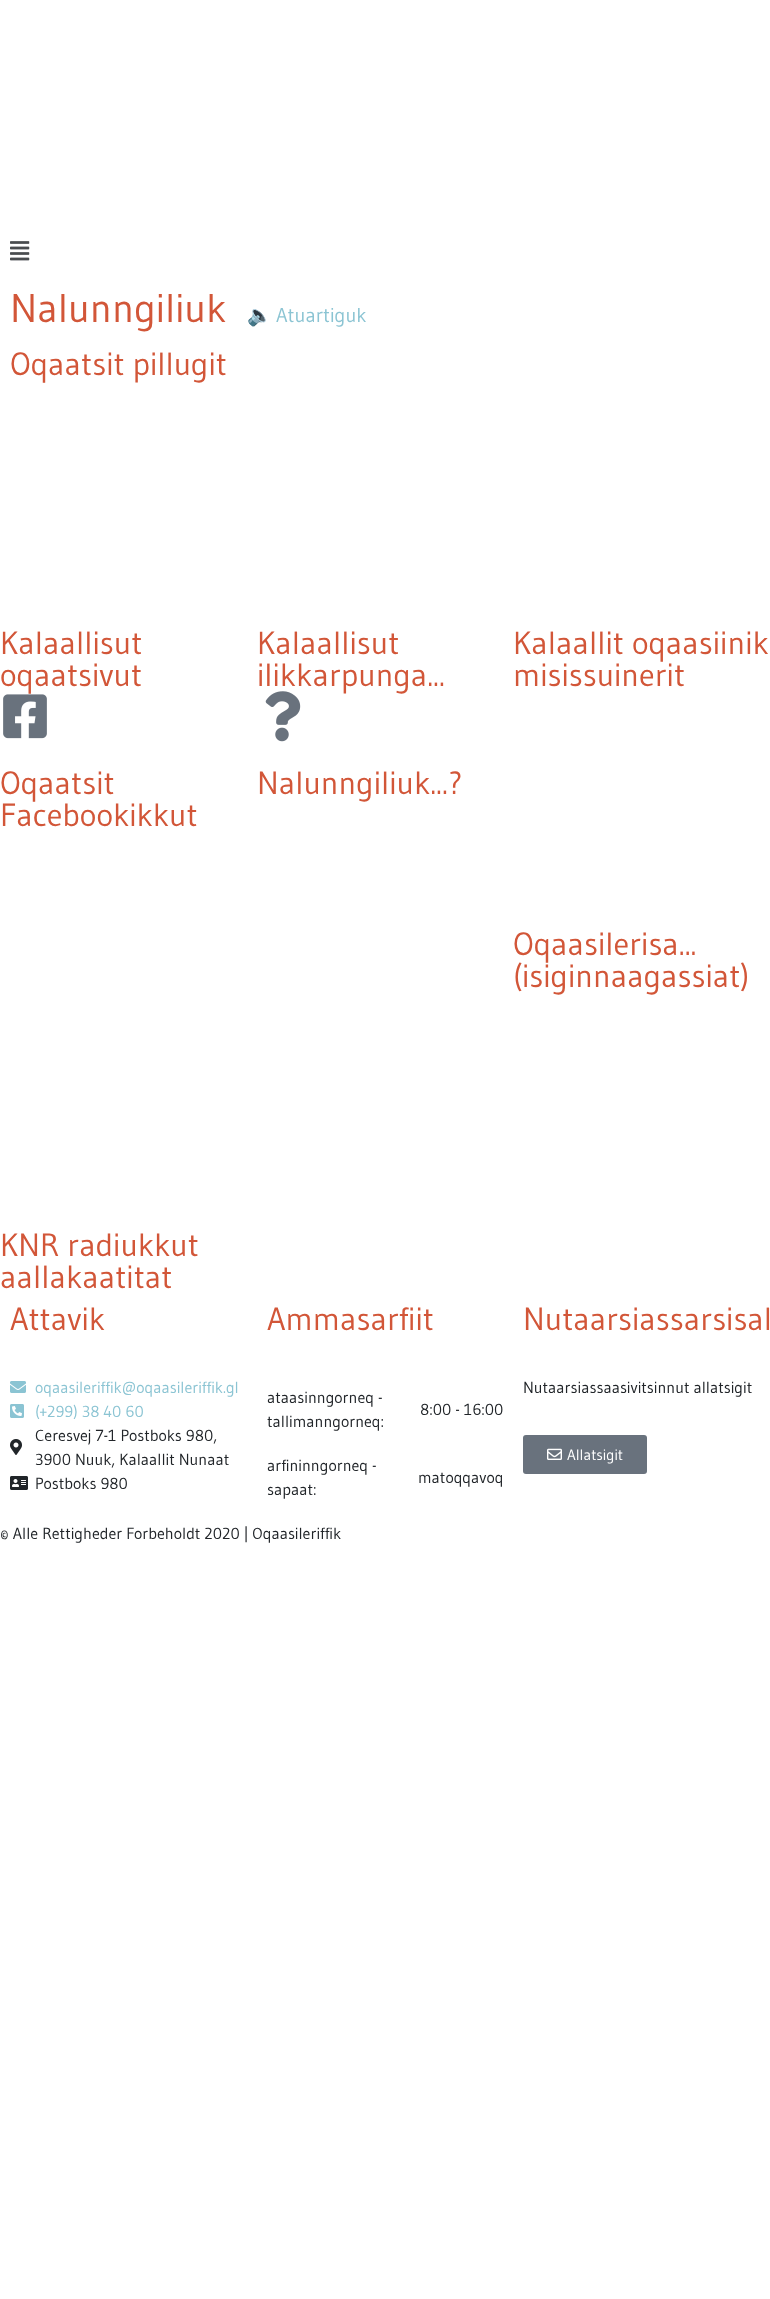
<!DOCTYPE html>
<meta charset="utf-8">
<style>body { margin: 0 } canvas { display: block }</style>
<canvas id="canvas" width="770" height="2299"></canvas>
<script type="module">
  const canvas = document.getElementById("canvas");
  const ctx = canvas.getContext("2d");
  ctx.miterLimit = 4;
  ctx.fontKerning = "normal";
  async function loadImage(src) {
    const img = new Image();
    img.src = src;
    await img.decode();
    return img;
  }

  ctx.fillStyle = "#ffffff";
  ctx.fillRect(0, 0, 770, 2299);
  ctx.drawImage(await loadImage("img1.png"), 10, 241, 20, 20);
  ctx.font = "40px Gudea";
  ctx.fillStyle = "#d25638";
  ctx.fillText("Nalunngiliuk", 10, 322);
  ctx.font = "20px Noto Color Emoji";
  ctx.fillStyle = "#8bc4d3";
  ctx.fillText("🔈", 247, 322);
  ctx.font = "20px Gudea";
  ctx.fillText("Atuartiguk", 276, 322);
  ctx.font = "32px Gudea";
  ctx.fillStyle = "#d25638";
  ctx.fillText("Oqaatsit pillugit", 10, 375);
  ctx.fillText("Kalaallisut", 0, 654);
  ctx.fillText("oqaatsivut", 0, 686);
  ctx.fillText("Kalaallisut", 257, 654);
  ctx.fillText("ilikkarpunga...", 257, 686);
  ctx.fillText("Kalaallit oqaasiinik", 513, 654);
  ctx.fillText("misissuinerit", 513, 686);
  ctx.drawImage(await loadImage("img2.png"), 3, 694, 44, 45);
  ctx.fillText("Oqaatsit", 0, 794);
  ctx.fillText("Facebookikkut", 0, 826);
  ctx.drawImage(await loadImage("img3.png"), 265, 691, 36, 51);
  ctx.fillText("Nalunngiliuk...?", 257, 794);
  ctx.fillText("Oqaasilerisa...", 513, 955);
  ctx.fillText("(isiginnaagassiat)", 513, 987);
  ctx.fillText("KNR radiukkut", 0, 1256);
  ctx.fillText("aallakaatitat", 0, 1288);
  ctx.fillText("Attavik", 10, 1330);
  ctx.drawImage(await loadImage("img4.png"), 10, 1381, 16, 12);
  ctx.font = "16px Gudea";
  ctx.fillStyle = "#8bc4d3";
  ctx.fillText("oqaasileriffik@oqaasileriffik.gl", 35, 1393);
  ctx.drawImage(await loadImage("img5.png"), 10, 1404, 14, 14);
  ctx.fillText("(+299) 38 40 60", 35, 1417);
  ctx.drawImage(await loadImage("img6.png"), 10, 1439, 12, 16);
  ctx.fillStyle = "#212529";
  ctx.fillText("Ceresvej 7-1 Postboks 980,", 35, 1441);
  ctx.fillText("3900 Nuuk, Kalaallit Nunaat", 35, 1465);
  ctx.drawImage(await loadImage("img7.png"), 10, 1476, 18, 14);
  ctx.fillText("Postboks 980", 35, 1489);
  ctx.font = "32px Gudea";
  ctx.fillStyle = "#d25638";
  ctx.fillText("Ammasarfiit", 267, 1330);
  ctx.font = "16px Gudea";
  ctx.fillStyle = "#212529";
  ctx.fillText("ataasinngorneq -", 267, 1403);
  ctx.fillText("tallimanngorneq:", 267, 1427);
  ctx.fillText("8:00 - 16:00", 420, 1415);
  ctx.fillText("arfininngorneq -", 267, 1471);
  ctx.fillText("sapaat:", 267, 1495);
  ctx.fillText("matoqqavoq", 418, 1483);
  ctx.font = "32px Gudea";
  ctx.fillStyle = "#d25638";
  ctx.fillText("Nutaarsiassarsisal", 523, 1330);
  ctx.font = "16px Gudea";
  ctx.fillStyle = "#212529";
  ctx.fillText("Nutaarsiassaasivitsinnut allatsigit", 523, 1393);
  ctx.fillStyle = "#69727d";
  ctx.beginPath();
  ctx.roundRect(523, 1435, 124, 39, 3);
  ctx.fill();
  ctx.drawImage(await loadImage("img8.png"), 547, 1448, 15, 12);
  ctx.font = "15px Gudea";
  ctx.fillStyle = "#ffffff";
  ctx.fillText("Allatsigit", 567, 1460);
  ctx.font = "16px Gudea";
  ctx.fillStyle = "#212529";
  ctx.fillText("© Alle Rettigheder Forbeholdt 2020 | Oqaasileriffik", 0, 1539);
</script>
